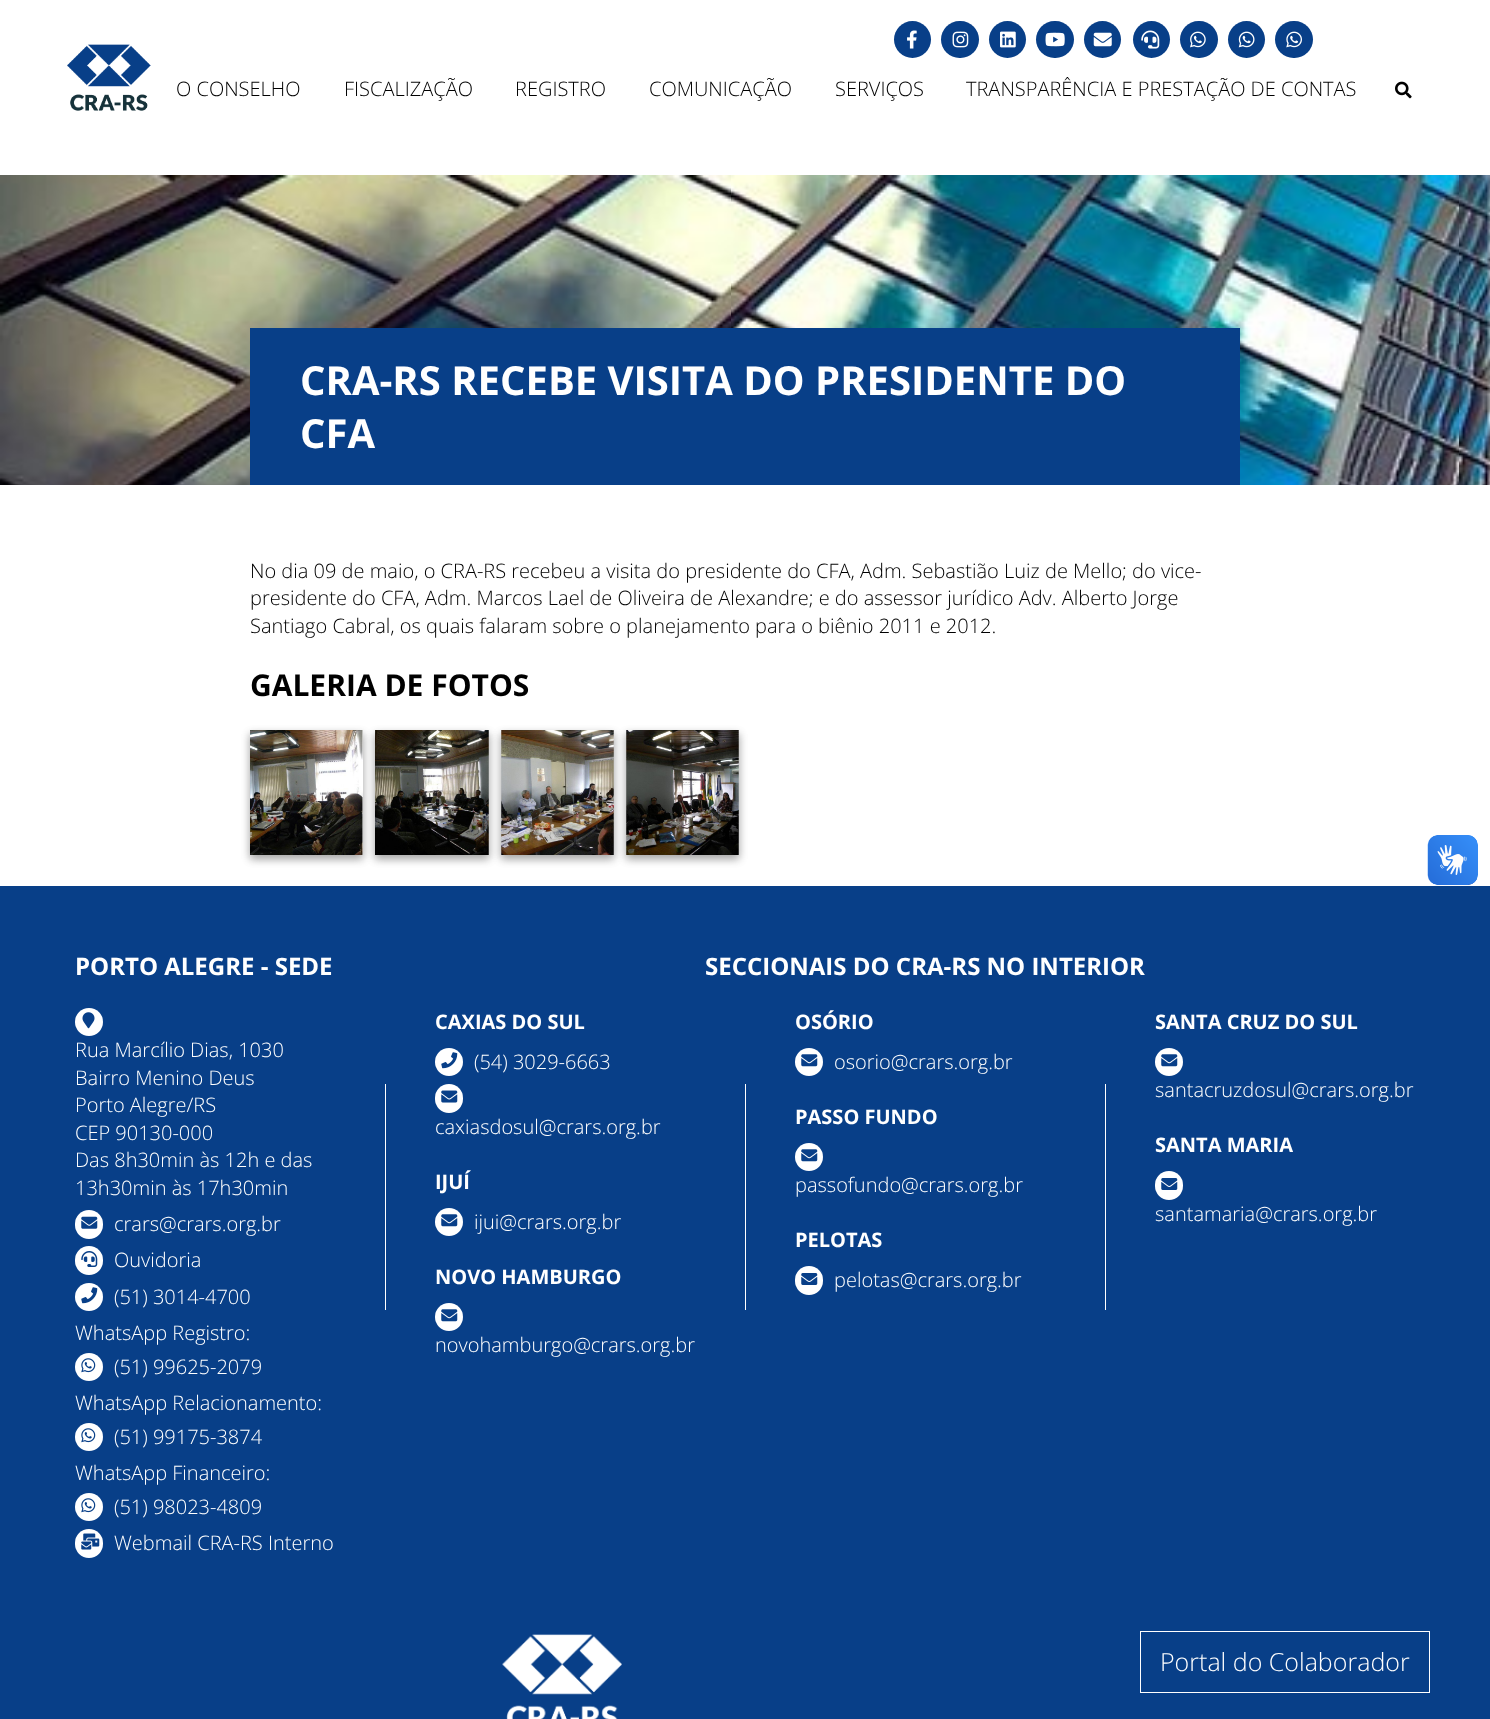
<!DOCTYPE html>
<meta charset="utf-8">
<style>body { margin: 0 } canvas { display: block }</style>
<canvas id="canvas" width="1490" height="1719"></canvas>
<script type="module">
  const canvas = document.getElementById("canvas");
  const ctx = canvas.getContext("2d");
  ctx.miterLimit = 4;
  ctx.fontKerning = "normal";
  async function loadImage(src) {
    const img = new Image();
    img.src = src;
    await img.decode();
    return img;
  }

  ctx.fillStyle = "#ffffff";
  ctx.fillRect(0, 0, 1490, 1719);
  ctx.fillStyle = "#083f88";
  ctx.beginPath();
  ctx.arc(912.5, 39.5, 18.5, 0, Math.PI * 2);
  ctx.fill();
  ctx.drawImage(await loadImage("img1.png"), 907, 30, 10, 19);
  ctx.beginPath();
  ctx.roundRect(941, 21, 38, 37, 18.5);
  ctx.fill();
  ctx.drawImage(await loadImage("img2.png"), 952, 31, 17, 17);
  ctx.beginPath();
  ctx.arc(1007.5, 39.5, 18.5, 0, Math.PI * 2);
  ctx.fill();
  ctx.drawImage(await loadImage("img3.png"), 1000, 31, 16, 17);
  ctx.beginPath();
  ctx.roundRect(1036, 21, 38, 37, 18.5);
  ctx.fill();
  ctx.drawImage(await loadImage("img4.png"), 1045, 32, 20, 15);
  ctx.beginPath();
  ctx.arc(1102.5, 39.5, 18.5, 0, Math.PI * 2);
  ctx.fill();
  ctx.drawImage(await loadImage("img5.png"), 1093, 32, 19, 15);
  ctx.beginPath();
  ctx.arc(1151.5, 39.5, 18.5, 0, Math.PI * 2);
  ctx.fill();
  ctx.drawImage(await loadImage("img6.png"), 1141, 30, 19, 19);
  ctx.beginPath();
  ctx.roundRect(1180, 21, 38, 37, 18.5);
  ctx.fill();
  ctx.drawImage(await loadImage("img7.png"), 1190, 31, 16, 17);
  ctx.beginPath();
  ctx.arc(1246.5, 39.5, 18.5, 0, Math.PI * 2);
  ctx.fill();
  ctx.drawImage(await loadImage("img8.png"), 1238, 31, 17, 17);
  ctx.beginPath();
  ctx.roundRect(1275, 21, 38, 37, 18.5);
  ctx.fill();
  ctx.drawImage(await loadImage("img9.png"), 1286, 31, 16, 17);
  ctx.drawImage(await loadImage("img10.png"), 67, 44, 84, 67);
  ctx.font = "300 20px Open Sans";
  ctx.fillStyle = "#000000";
  ctx.fillText("O CONSELHO", 176, 96);
  ctx.fillText("FISCALIZAÇÃO", 344, 96);
  ctx.fillText("REGISTRO", 515, 96);
  ctx.fillText("COMUNICAÇÃO", 649, 96);
  ctx.fillText("SERVIÇOS", 835, 96);
  ctx.fillText("TRANSPARÊNCIA E PRESTAÇÃO DE CONTAS", 966, 96);
  ctx.drawImage(await loadImage("img11.png"), 1395, 81, 17, 18);
  ctx.drawImage(await loadImage("img12.png"), 0, 175, 1490, 310);
  ctx.fillStyle = "#083f88";
  ctx.fillRect(250, 328, 990, 157);
  ctx.font = "bold 40px Open Sans";
  ctx.fillStyle = "#ffffff";
  ctx.fillText("CRA-RS RECEBE VISITA DO PRESIDENTE DO", 300, 395);
  ctx.fillText("CFA", 300, 448);
  ctx.font = "300 20px Open Sans";
  ctx.fillStyle = "#000000";
  ctx.fillText("No dia 09 de maio, o CRA-RS recebeu a visita do presidente do CFA, Adm. Sebastião Luiz de Mello; do vice-", 250, 578);
  ctx.fillText("presidente do CFA, Adm. Marcos Lael de Oliveira de Alexandre; e do assessor jurídico Adv. Alberto Jorge", 250, 605);
  ctx.fillText("Santiago Cabral, os quais falaram sobre o planejamento para o biênio 2011 e 2012.", 250, 633);
  ctx.font = "bold 30px Open Sans";
  ctx.fillText("GALERIA DE FOTOS", 250, 696);
  ctx.fillStyle = "rgba(0, 0, 0, 0.23)";
  ctx.filter = "blur(4px)";
  ctx.beginPath();
  ctx.rect(250, 734, 113, 125);
  ctx.fill();
  ctx.filter = "none";
  ctx.fillStyle = "rgba(0, 0, 0, 0.16)";
  ctx.filter = "blur(4px)";
  ctx.beginPath();
  ctx.rect(250, 734, 113, 125);
  ctx.fill();
  ctx.filter = "none";
  ctx.fillStyle = "#ffffff";
  ctx.fillRect(362, 730, 1, 125);
  ctx.drawImage(await loadImage("img13.png"), 250, 730, 113, 125);
  ctx.fillStyle = "rgba(0, 0, 0, 0.23)";
  ctx.filter = "blur(4px)";
  ctx.beginPath();
  ctx.rect(375, 734, 114, 125);
  ctx.fill();
  ctx.filter = "none";
  ctx.fillStyle = "rgba(0, 0, 0, 0.16)";
  ctx.filter = "blur(4px)";
  ctx.beginPath();
  ctx.rect(375, 734, 114, 125);
  ctx.fill();
  ctx.filter = "none";
  ctx.drawImage(await loadImage("img14.png"), 375, 730, 114, 125);
  ctx.fillStyle = "rgba(0, 0, 0, 0.23)";
  ctx.filter = "blur(4px)";
  ctx.beginPath();
  ctx.rect(501, 734, 113, 125);
  ctx.fill();
  ctx.filter = "none";
  ctx.fillStyle = "rgba(0, 0, 0, 0.16)";
  ctx.filter = "blur(4px)";
  ctx.beginPath();
  ctx.rect(501, 734, 113, 125);
  ctx.fill();
  ctx.filter = "none";
  ctx.drawImage(await loadImage("img15.png"), 501, 730, 113, 125);
  ctx.fillStyle = "rgba(0, 0, 0, 0.23)";
  ctx.filter = "blur(4px)";
  ctx.beginPath();
  ctx.rect(626, 734, 113, 125);
  ctx.fill();
  ctx.filter = "none";
  ctx.fillStyle = "rgba(0, 0, 0, 0.16)";
  ctx.filter = "blur(4px)";
  ctx.beginPath();
  ctx.rect(626, 734, 113, 125);
  ctx.fill();
  ctx.filter = "none";
  ctx.drawImage(await loadImage("img16.png"), 626, 730, 113, 125);
  ctx.fillStyle = "#083f88";
  ctx.fillRect(0, 886, 1490, 833);
  ctx.font = "bold 24px Open Sans";
  ctx.fillStyle = "#ffffff";
  ctx.fillText("PORTO ALEGRE - SEDE", 75, 975);
  ctx.beginPath();
  ctx.arc(89, 1022, 14, 0, Math.PI * 2);
  ctx.fill();
  ctx.drawImage(await loadImage("img17.png"), 82, 1012, 13, 17);
  ctx.font = "300 20px Open Sans";
  ctx.fillText("Rua Marcílio Dias, 1030", 75, 1057);
  ctx.fillText("Bairro Menino Deus", 75, 1085);
  ctx.fillText("Porto Alegre/RS", 75, 1112);
  ctx.fillText("CEP 90130-000", 75, 1140);
  ctx.fillText("Das 8h30min às 12h e das", 75, 1167);
  ctx.fillText("13h30min às 17h30min", 75, 1195);
  ctx.beginPath();
  ctx.roundRect(75, 1210, 28, 29, 14);
  ctx.fill();
  ctx.drawImage(await loadImage("img18.png"), 81, 1216, 17, 13);
  ctx.fillText("crars@crars.org.br", 114, 1231);
  ctx.beginPath();
  ctx.roundRect(75, 1246, 28, 29, 14);
  ctx.fill();
  ctx.drawImage(await loadImage("img19.png"), 81, 1251, 17, 16);
  ctx.fillText("Ouvidoria", 114, 1267);
  ctx.beginPath();
  ctx.arc(89, 1297, 14, 0, Math.PI * 2);
  ctx.fill();
  ctx.drawImage(await loadImage("img20.png"), 81, 1287, 17, 17);
  ctx.fillText("(51) 3014-4700", 114, 1304);
  ctx.fillText("WhatsApp Registro:", 75, 1340);
  ctx.beginPath();
  ctx.arc(89, 1367, 14, 0, Math.PI * 2);
  ctx.fill();
  ctx.drawImage(await loadImage("img21.png"), 81, 1358, 15, 15);
  ctx.fillText("(51) 99625-2079", 114, 1374);
  ctx.fillText("WhatsApp Relacionamento:", 75, 1410);
  ctx.beginPath();
  ctx.arc(89, 1437, 14, 0, Math.PI * 2);
  ctx.fill();
  ctx.drawImage(await loadImage("img21.png"), 81, 1428, 15, 15);
  ctx.fillText("(51) 99175-3874", 114, 1444);
  ctx.fillText("WhatsApp Financeiro:", 75, 1480);
  ctx.beginPath();
  ctx.arc(89, 1507, 14, 0, Math.PI * 2);
  ctx.fill();
  ctx.drawImage(await loadImage("img21.png"), 81, 1498, 15, 15);
  ctx.fillText("(51) 98023-4809", 114, 1514);
  ctx.beginPath();
  ctx.roundRect(75, 1529, 28, 29, 14);
  ctx.fill();
  ctx.drawImage(await loadImage("img22.png"), 81, 1533, 19, 17);
  ctx.fillText("Webmail CRA-RS Interno", 114, 1550);
  ctx.font = "bold 24px Open Sans";
  ctx.fillText("SECCIONAIS DO CRA-RS NO INTERIOR", 705, 975);
  ctx.fillRect(385, 1084, 1, 226);
  ctx.font = "bold 20px Open Sans";
  ctx.fillText("CAXIAS DO SUL", 435, 1029);
  ctx.beginPath();
  ctx.arc(449, 1062, 14, 0, Math.PI * 2);
  ctx.fill();
  ctx.drawImage(await loadImage("img20.png"), 441, 1052, 17, 17);
  ctx.font = "300 20px Open Sans";
  ctx.fillText("(54) 3029-6663", 474, 1069);
  ctx.beginPath();
  ctx.roundRect(435, 1084, 28, 29, 14);
  ctx.fill();
  ctx.drawImage(await loadImage("img23.png"), 441, 1090, 17, 13);
  ctx.fillText("caxiasdosul@crars.org.br", 435, 1134);
  ctx.font = "bold 20px Open Sans";
  ctx.fillText("IJUÍ", 435, 1189);
  ctx.beginPath();
  ctx.arc(449, 1222, 14, 0, Math.PI * 2);
  ctx.fill();
  ctx.drawImage(await loadImage("img24.png"), 441, 1214, 17, 13);
  ctx.font = "300 20px Open Sans";
  ctx.fillText("ijui@crars.org.br", 474, 1229);
  ctx.font = "bold 20px Open Sans";
  ctx.fillText("NOVO HAMBURGO", 435, 1284);
  ctx.beginPath();
  ctx.arc(449, 1317, 14, 0, Math.PI * 2);
  ctx.fill();
  ctx.drawImage(await loadImage("img24.png"), 441, 1309, 17, 13);
  ctx.font = "300 20px Open Sans";
  ctx.fillText("novohamburgo@crars.org.br", 435, 1352);
  ctx.font = "bold 20px Open Sans";
  ctx.fillText("OSÓRIO", 795, 1029);
  ctx.beginPath();
  ctx.arc(809, 1062, 14, 0, Math.PI * 2);
  ctx.fill();
  ctx.drawImage(await loadImage("img24.png"), 801, 1054, 17, 13);
  ctx.font = "300 20px Open Sans";
  ctx.fillText("osorio@crars.org.br", 834, 1069);
  ctx.fillRect(745, 1084, 1, 226);
  ctx.font = "bold 20px Open Sans";
  ctx.fillText("PASSO FUNDO", 795, 1124);
  ctx.beginPath();
  ctx.arc(809, 1157, 14, 0, Math.PI * 2);
  ctx.fill();
  ctx.drawImage(await loadImage("img24.png"), 801, 1149, 17, 13);
  ctx.font = "300 20px Open Sans";
  ctx.fillText("passofundo@crars.org.br", 795, 1192);
  ctx.font = "bold 20px Open Sans";
  ctx.fillText("PELOTAS", 795, 1247);
  ctx.beginPath();
  ctx.roundRect(795, 1266, 28, 29, 14);
  ctx.fill();
  ctx.drawImage(await loadImage("img25.png"), 801, 1273, 17, 12);
  ctx.font = "300 20px Open Sans";
  ctx.fillText("pelotas@crars.org.br", 834, 1287);
  ctx.font = "bold 20px Open Sans";
  ctx.fillText("SANTA CRUZ DO SUL", 1155, 1029);
  ctx.beginPath();
  ctx.arc(1169, 1062, 14, 0, Math.PI * 2);
  ctx.fill();
  ctx.drawImage(await loadImage("img24.png"), 1161, 1054, 17, 13);
  ctx.font = "300 20px Open Sans";
  ctx.fillText("santacruzdosul@crars.org.br", 1155, 1097);
  ctx.fillRect(1105, 1084, 1, 226);
  ctx.font = "bold 20px Open Sans";
  ctx.fillText("SANTA MARIA", 1155, 1152);
  ctx.beginPath();
  ctx.roundRect(1155, 1171, 28, 29, 14);
  ctx.fill();
  ctx.drawImage(await loadImage("img25.png"), 1161, 1178, 17, 12);
  ctx.font = "300 20px Open Sans";
  ctx.fillText("santamaria@crars.org.br", 1155, 1221);
  ctx.drawImage(await loadImage("img26.png"), 502, 1634, 120, 85);
  ctx.strokeStyle = "#ffffff";
  ctx.strokeRect(1140.5, 1631.5, 289, 61);
  ctx.font = "300 25px Open Sans";
  ctx.fillText("Portal do Colaborador", 1160, 1671);
  ctx.drawImage(await loadImage("img27.png"), 1427, 835, 51, 50);
  ctx.drawImage(await loadImage("img28.png"), 1428, 835, 50, 50);
</script>
